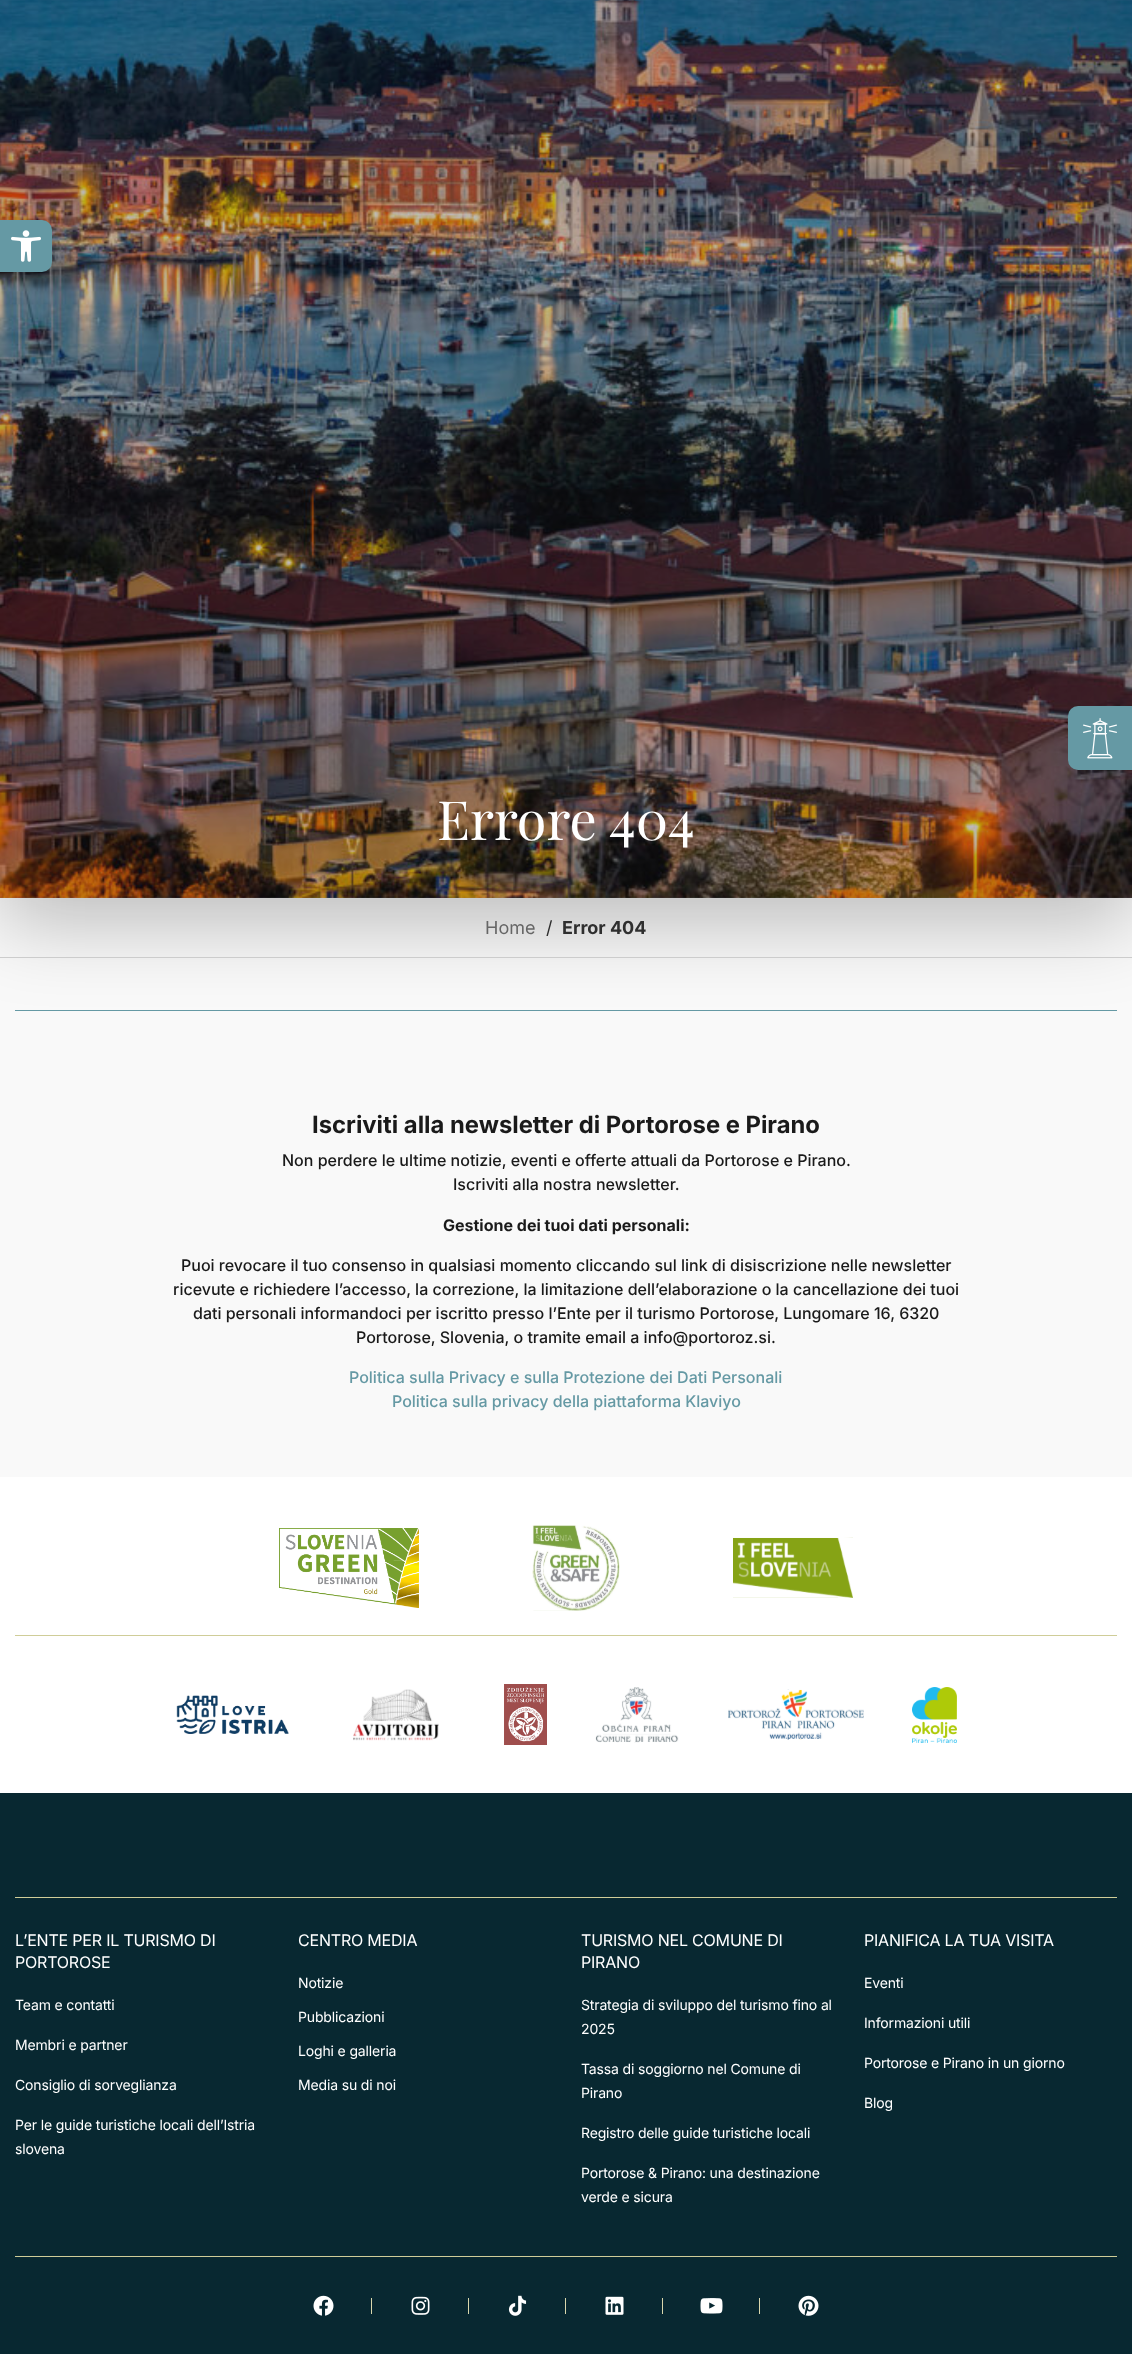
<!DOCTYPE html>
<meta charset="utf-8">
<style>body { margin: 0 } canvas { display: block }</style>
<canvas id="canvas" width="1132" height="2354"></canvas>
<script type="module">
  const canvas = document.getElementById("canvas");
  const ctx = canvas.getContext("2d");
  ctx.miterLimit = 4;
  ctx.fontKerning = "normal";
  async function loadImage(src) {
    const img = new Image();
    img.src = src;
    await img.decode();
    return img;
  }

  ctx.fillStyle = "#f9f9f9";
  ctx.fillRect(0, 0, 1132, 2354);
  ctx.fillStyle = "#6599a4";
  ctx.fillRect(15, 1010, 1102, 1);
  ctx.fillStyle = "rgba(0, 0, 0, 0.25)";
  ctx.filter = "blur(40px)";
  ctx.beginPath();
  ctx.rect(0, -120, 1132, 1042);
  ctx.fill();
  ctx.filter = "none";
  ctx.drawImage(await loadImage("img3.png"), 0, 0, 1132, 898);
  ctx.fillStyle = "rgba(0, 0, 0, 0.1)";
  ctx.filter = "blur(5px)";
  ctx.beginPath();
  ctx.roundRect(0, 220, 52, 52, 10);
  ctx.fill();
  ctx.filter = "none";
  ctx.fillStyle = "#6599a4";
  ctx.beginPath();
  ctx.roundRect(0, 220, 52, 52, [0, 10, 10, 0]);
  ctx.fill();
  ctx.drawImage(await loadImage("img1.png"), 11, 230, 30, 32);
  ctx.beginPath();
  ctx.roundRect(1068, 706, 64, 64, [10, 0, 0, 10]);
  ctx.fill();
  ctx.drawImage(await loadImage("img2.png"), 1083, 718, 34, 41);
  ctx.font = "54px Playfair Display";
  ctx.fillStyle = "#ffffff";
  ctx.fillText("Errore 404", 437, 840);
  ctx.fillStyle = "#cccccc";
  ctx.fillRect(0, 957, 1132, 1);
  ctx.font = "18px Inter";
  ctx.fillStyle = "#666666";
  ctx.fillText("Home", 485, 934);
  ctx.fillStyle = "#2f2f2f";
  ctx.fillText("/", 546, 934);
  ctx.font = "bold 18px Inter";
  ctx.fillText("Error 404", 562, 934);
  ctx.font = "bold 23.8px Inter";
  ctx.fillStyle = "#1a1a1a";
  ctx.fillText("Iscriviti alla newsletter di Portorose e Pirano", 312, 1133);
  ctx.font = "500 16px Inter";
  ctx.fillText("Non perdere le ultime notizie, eventi e offerte attuali da Portorose e Pirano.", 282, 1166);
  ctx.fillText("Iscriviti alla nostra newsletter.", 453, 1190);
  ctx.font = "bold 16px Inter";
  ctx.fillText("Gestione dei tuoi dati personali:", 443, 1231);
  ctx.font = "500 16px Inter";
  ctx.fillText("Puoi revocare il tuo consenso in qualsiasi momento cliccando sul link di disiscrizione nelle newsletter", 181, 1271);
  ctx.fillText("ricevute e richiedere l’accesso, la correzione, la limitazione dell’elaborazione o la cancellazione dei tuoi", 173, 1295);
  ctx.fillText("dati personali informandoci per iscritto presso l’Ente per il turismo Portorose, Lungomare 16, 6320", 193, 1319);
  ctx.fillText("Portorose, Slovenia, o tramite email a info@portoroz.si.", 356, 1343);
  ctx.fillStyle = "#6599a4";
  ctx.fillText("Politica sulla Privacy e sulla Protezione dei Dati Personali", 349, 1383);
  ctx.fillText("Politica sulla privacy della piattaforma Klaviyo", 392, 1407);
  ctx.fillStyle = "#ffffff";
  ctx.fillRect(0, 1477, 1132, 316);
  ctx.fillStyle = "#cfcd98";
  ctx.fillRect(15, 1635, 1102, 1);
  ctx.drawImage(await loadImage("img4.png"), 279, 1528, 140, 80);
  ctx.drawImage(await loadImage("img5.png"), 532, 1525, 88, 86);
  ctx.drawImage(await loadImage("img6.png"), 733, 1537, 120, 61);
  ctx.drawImage(await loadImage("img7.png"), 176, 1695, 113, 39);
  ctx.drawImage(await loadImage("img8.png"), 353, 1689, 86, 52);
  ctx.drawImage(await loadImage("img9.png"), 504, 1684, 43, 61);
  ctx.drawImage(await loadImage("img10.png"), 595, 1687, 84, 56);
  ctx.drawImage(await loadImage("img11.png"), 728, 1689, 136, 51);
  ctx.drawImage(await loadImage("img12.png"), 912, 1687, 45, 56);
  ctx.fillStyle = "#082831";
  ctx.fillRect(0, 1793, 1132, 561);
  ctx.fillStyle = "#cfcd98";
  ctx.fillRect(15, 1897, 1102, 1);
  ctx.letterSpacing = "-0.2px";
  ctx.font = "16px Inter";
  ctx.fillStyle = "#ffffff";
  ctx.fillText("L’ENTE PER IL TURISMO DI", 15, 1946);
  ctx.fillText("PORTOROSE", 15, 1968);
  ctx.letterSpacing = "-0.15px";
  ctx.font = "14px Inter";
  ctx.fillText("Team e contatti", 15, 2010);
  ctx.fillText("Membri e partner", 15, 2050);
  ctx.fillText("Consiglio di sorveglianza", 15, 2090);
  ctx.fillText("Per le guide turistiche locali dell’Istria", 15, 2130);
  ctx.fillText("slovena", 15, 2154);
  ctx.letterSpacing = "-0.2px";
  ctx.font = "16px Inter";
  ctx.fillText("CENTRO MEDIA", 298, 1946);
  ctx.letterSpacing = "-0.15px";
  ctx.font = "14px Inter";
  ctx.fillText("Notizie", 298, 1988);
  ctx.fillText("Pubblicazioni", 298, 2022);
  ctx.fillText("Loghi e galleria", 298, 2056);
  ctx.fillText("Media su di noi", 298, 2090);
  ctx.letterSpacing = "-0.2px";
  ctx.font = "16px Inter";
  ctx.fillText("TURISMO NEL COMUNE DI", 581, 1946);
  ctx.fillText("PIRANO", 581, 1968);
  ctx.letterSpacing = "-0.15px";
  ctx.font = "14px Inter";
  ctx.fillText("Strategia di sviluppo del turismo fino al", 581, 2010);
  ctx.fillText("2025", 581, 2034);
  ctx.fillText("Tassa di soggiorno nel Comune di", 581, 2074);
  ctx.fillText("Pirano", 581, 2098);
  ctx.fillText("Registro delle guide turistiche locali", 581, 2138);
  ctx.fillText("Portorose & Pirano: una destinazione", 581, 2178);
  ctx.fillText("verde e sicura", 581, 2202);
  ctx.letterSpacing = "-0.2px";
  ctx.font = "16px Inter";
  ctx.fillText("PIANIFICA LA TUA VISITA", 864, 1946);
  ctx.letterSpacing = "-0.15px";
  ctx.font = "14px Inter";
  ctx.fillText("Eventi", 864, 1988);
  ctx.fillText("Informazioni utili", 864, 2028);
  ctx.fillText("Portorose e Pirano in un giorno", 864, 2068);
  ctx.fillText("Blog", 864, 2108);
  ctx.fillStyle = "#cfcd98";
  ctx.fillRect(15, 2256, 1102, 1);
  ctx.drawImage(await loadImage("img13.png"), 313, 2295, 21, 21);
  ctx.fillStyle = "#d9d7ad";
  ctx.fillRect(371, 2298, 1, 16);
  ctx.drawImage(await loadImage("img14.png"), 411, 2296, 19, 19);
  ctx.fillRect(468, 2298, 1, 16);
  ctx.drawImage(await loadImage("img15.png"), 508, 2295, 19, 21);
  ctx.fillRect(565, 2298, 1, 16);
  ctx.drawImage(await loadImage("img16.png"), 605, 2296, 19, 19);
  ctx.fillRect(662, 2298, 1, 16);
  ctx.drawImage(await loadImage("img17.png"), 700, 2298, 23, 16);
  ctx.fillRect(759, 2298, 1, 16);
  ctx.drawImage(await loadImage("img18.png"), 798, 2295, 21, 21);
</script>
